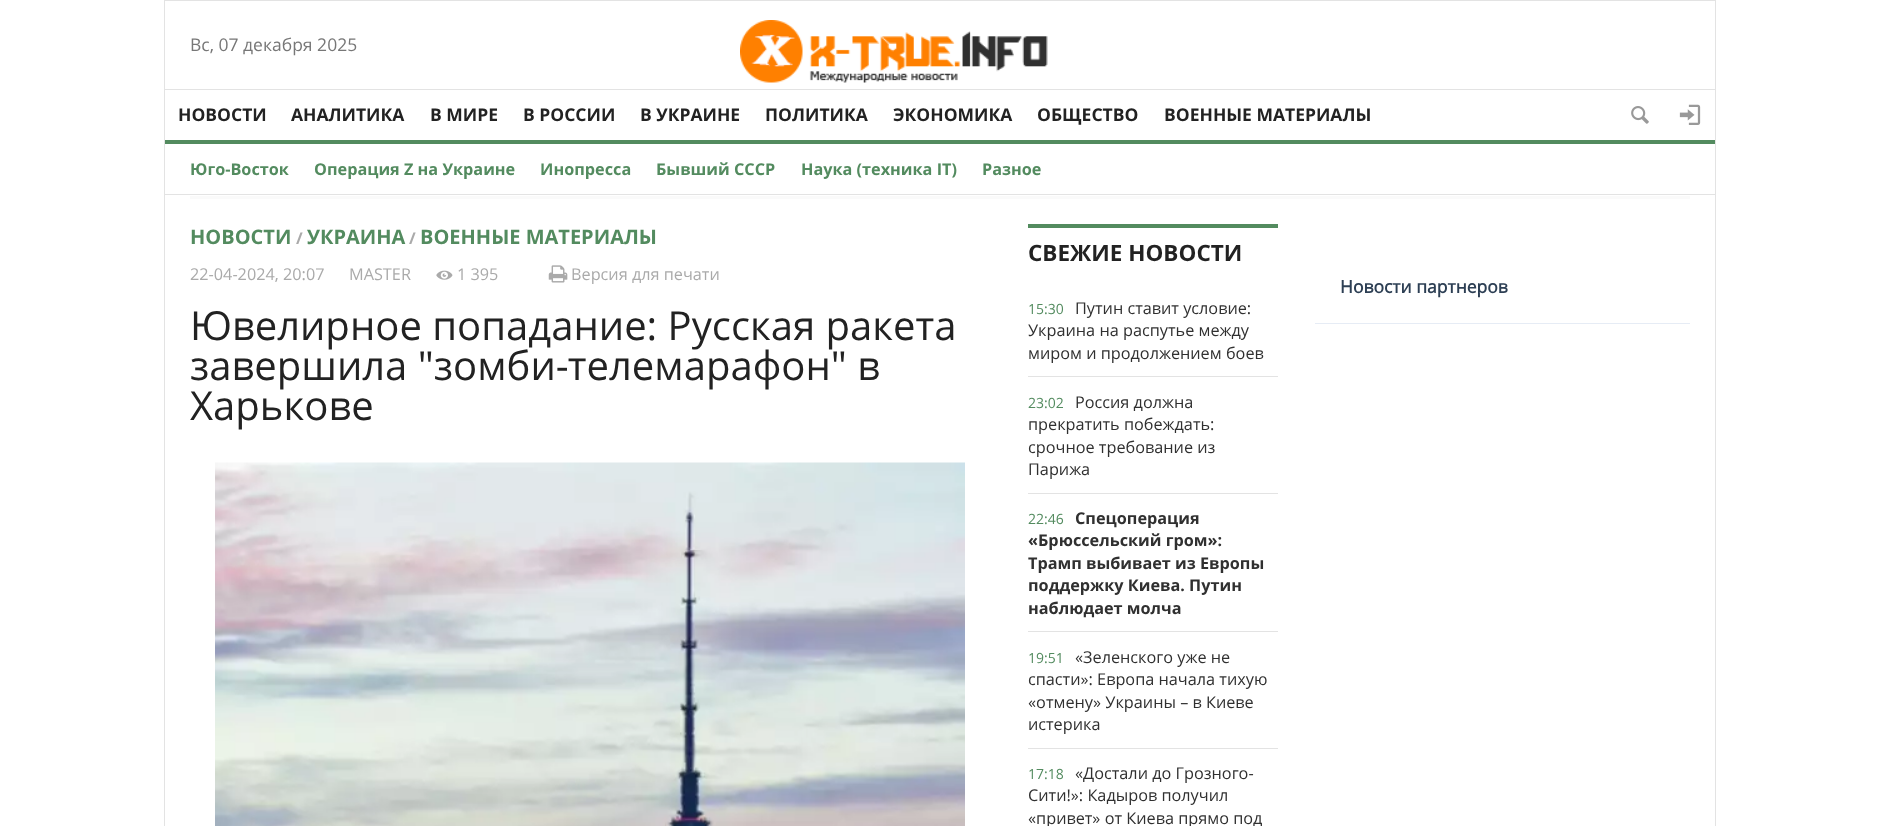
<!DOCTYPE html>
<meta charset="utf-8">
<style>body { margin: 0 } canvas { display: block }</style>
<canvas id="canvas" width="1879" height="826"></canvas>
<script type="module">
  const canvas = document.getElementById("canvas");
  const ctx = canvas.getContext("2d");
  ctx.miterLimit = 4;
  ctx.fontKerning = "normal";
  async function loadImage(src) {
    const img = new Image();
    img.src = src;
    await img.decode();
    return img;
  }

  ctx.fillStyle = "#ffffff";
  ctx.fillRect(0, 0, 1879, 826);
  ctx.fillStyle = "#e3e3e3";
  ctx.fillRect(1715, 0, 1, 826);
  ctx.fillRect(164, 0, 1, 144);
  ctx.fillRect(165, 0, 1550, 1);
  ctx.font = "17.5px Open Sans";
  ctx.fillStyle = "#777777";
  ctx.fillText("Вс, 07 декабря 2025", 190, 51);
  ctx.drawImage(await loadImage("img1.png"), 740, 20, 308, 63);
  ctx.fillStyle = "#e3e3e3";
  ctx.fillRect(165, 89, 1550, 1);
  ctx.fillStyle = "#538b5f";
  ctx.fillRect(165, 140, 1550, 4);
  ctx.font = "bold 17.5px Open Sans";
  ctx.fillStyle = "#222222";
  ctx.fillText("НОВОСТИ", 178, 121);
  ctx.fillText("АНАЛИТИКА", 291, 121);
  ctx.fillText("В МИРЕ", 430, 121);
  ctx.fillText("В РОССИИ", 523, 121);
  ctx.fillText("В УКРАИНЕ", 640, 121);
  ctx.fillText("ПОЛИТИКА", 765, 121);
  ctx.fillText("ЭКОНОМИКА", 893, 121);
  ctx.fillText("ОБЩЕСТВО", 1037, 121);
  ctx.fillText("ВОЕННЫЕ МАТЕРИАЛЫ", 1164, 121);
  ctx.drawImage(await loadImage("img2.png"), 1631, 106, 18, 18);
  ctx.drawImage(await loadImage("img3.png"), 1679, 104, 22, 21);
  ctx.fillStyle = "#e3e3e3";
  ctx.fillRect(164, 194, 1552, 1);
  ctx.fillRect(164, 144, 1, 682);
  ctx.font = "bold 16.25px Open Sans";
  ctx.fillStyle = "#538b5f";
  ctx.fillText("Юго-Восток", 190, 175);
  ctx.fillText("Операция Z на Украине", 314, 175);
  ctx.fillText("Инопресса", 540, 175);
  ctx.fillText("Бывший СССР", 656, 175);
  ctx.fillText("Наука (техника IT)", 801, 175);
  ctx.fillText("Разное", 982, 175);
  ctx.fillStyle = "#fafafa";
  ctx.fillRect(190, 196, 1500, 3);
  ctx.font = "bold 20px Open Sans";
  ctx.fillStyle = "#538b5f";
  ctx.fillText("НОВОСТИ", 190, 244);
  ctx.font = "bold 16.25px Open Sans";
  ctx.fillStyle = "#aaaaaa";
  ctx.fillText("/", 296, 244);
  ctx.font = "bold 20px Open Sans";
  ctx.fillStyle = "#538b5f";
  ctx.fillText("УКРАИНА", 307, 244);
  ctx.font = "bold 16.25px Open Sans";
  ctx.fillStyle = "#aaaaaa";
  ctx.fillText("/", 409, 244);
  ctx.font = "bold 20px Open Sans";
  ctx.fillStyle = "#538b5f";
  ctx.fillText("ВОЕННЫЕ МАТЕРИАЛЫ", 420, 244);
  ctx.font = "16.25px Open Sans";
  ctx.fillStyle = "#aaaaaa";
  ctx.fillText("22-04-2024, 20:07", 190, 280);
  ctx.fillText("MASTER", 349, 280);
  ctx.drawImage(await loadImage("img4.png"), 436, 270, 17, 10);
  ctx.fillText("1 395", 457, 280);
  ctx.drawImage(await loadImage("img5.png"), 548, 265, 20, 18);
  ctx.fillText("Версия для печати", 571, 280);
  ctx.font = "40px Open Sans";
  ctx.fillStyle = "#222222";
  ctx.fillText("Ювелирное попадание: Русская ракета", 190, 340);
  ctx.fillText("завершила \"зомби-телемарафон\" в", 190, 380);
  ctx.fillText("Харькове", 190, 420);
  ctx.drawImage(await loadImage("img6.png"), 215, 462, 750, 364);
  ctx.fillStyle = "#538b5f";
  ctx.fillRect(1028, 224, 250, 4);
  ctx.font = "bold 22.5px Open Sans";
  ctx.fillStyle = "#222222";
  ctx.fillText("СВЕЖИЕ НОВОСТИ", 1028, 261);
  ctx.fillStyle = "#e3e3e3";
  ctx.fillRect(1028, 376, 250, 1);
  ctx.font = "16.25px Open Sans";
  ctx.fillStyle = "#303030";
  ctx.fillText("Путин ставит условие:", 1075, 314);
  ctx.fillText("Украина на распутье между", 1028, 336);
  ctx.fillText("миром и продолжением боев", 1028, 359);
  ctx.font = "14px Open Sans";
  ctx.fillStyle = "#538b5f";
  ctx.fillText("15:30", 1028, 314);
  ctx.fillStyle = "#e3e3e3";
  ctx.fillRect(1028, 493, 250, 1);
  ctx.font = "16.25px Open Sans";
  ctx.fillStyle = "#303030";
  ctx.fillText("Россия должна", 1075, 408);
  ctx.fillText("прекратить побеждать:", 1028, 430);
  ctx.fillText("срочное требование из", 1028, 453);
  ctx.fillText("Парижа", 1028, 475);
  ctx.font = "14px Open Sans";
  ctx.fillStyle = "#538b5f";
  ctx.fillText("23:02", 1028, 408);
  ctx.fillStyle = "#e3e3e3";
  ctx.fillRect(1028, 631, 250, 1);
  ctx.font = "bold 16.25px Open Sans";
  ctx.fillStyle = "#303030";
  ctx.fillText("Спецоперация", 1075, 524);
  ctx.fillText("«Брюссельский гром»:", 1028, 546);
  ctx.fillText("Трамп выбивает из Европы", 1028, 569);
  ctx.fillText("поддержку Киева. Путин", 1028, 591);
  ctx.fillText("наблюдает молча", 1028, 614);
  ctx.font = "14px Open Sans";
  ctx.fillStyle = "#538b5f";
  ctx.fillText("22:46", 1028, 524);
  ctx.fillStyle = "#e3e3e3";
  ctx.fillRect(1028, 748, 250, 1);
  ctx.font = "16.25px Open Sans";
  ctx.fillStyle = "#303030";
  ctx.fillText("«Зеленского уже не", 1075, 663);
  ctx.fillText("спасти»: Европа начала тихую", 1028, 685);
  ctx.fillText("«отмену» Украины – в Киеве", 1028, 708);
  ctx.fillText("истерика", 1028, 730);
  ctx.font = "14px Open Sans";
  ctx.fillStyle = "#538b5f";
  ctx.fillText("19:51", 1028, 663);
  ctx.font = "16.25px Open Sans";
  ctx.fillStyle = "#303030";
  ctx.fillText("«Достали до Грозного-", 1075, 779);
  ctx.fillText("Сити!»: Кадыров получил", 1028, 801);
  ctx.fillText("«привет» от Киева прямо под", 1028, 824);
  ctx.font = "14px Open Sans";
  ctx.fillStyle = "#538b5f";
  ctx.fillText("17:18", 1028, 779);
  ctx.fillStyle = "#e6ecf5";
  ctx.fillRect(1315, 323, 375, 1);
  ctx.font = "bold 17.5px 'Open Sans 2'";
  ctx.fillStyle = "#2d3f54";
  ctx.fillText("Новости партнеров", 1340, 293);
</script>
